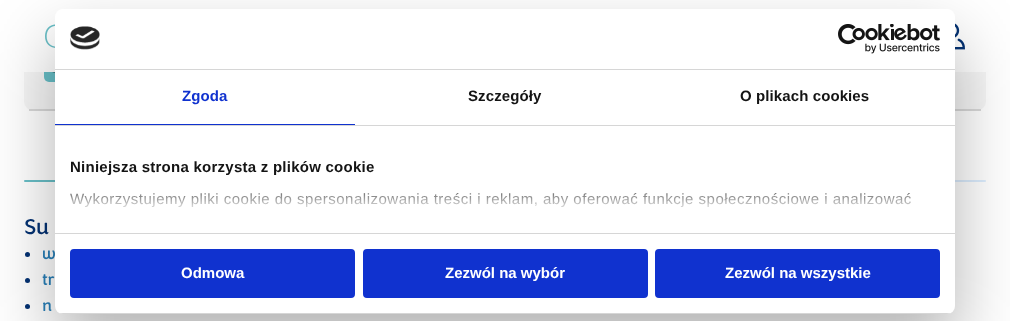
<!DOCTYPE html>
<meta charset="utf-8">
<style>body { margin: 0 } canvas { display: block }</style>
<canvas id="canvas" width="1010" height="321"></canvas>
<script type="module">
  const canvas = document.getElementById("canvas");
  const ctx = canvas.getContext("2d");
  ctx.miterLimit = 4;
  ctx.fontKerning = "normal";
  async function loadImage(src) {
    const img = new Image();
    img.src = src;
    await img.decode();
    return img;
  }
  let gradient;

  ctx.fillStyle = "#ffffff";
  ctx.fillRect(0, 0, 1010, 321);
  ctx.fillStyle = "#f6f6f6";
  ctx.beginPath();
  ctx.roundRect(24, -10, 962, 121, 10);
  ctx.fill();
  ctx.fillStyle = "#67bec6";
  ctx.beginPath();
  ctx.roundRect(44, 34, 48, 48, 5);
  ctx.fill();
  ctx.fillStyle = "#ffffff";
  ctx.fillRect(24, 0, 962, 72);
  ctx.drawImage(await loadImage("img1.png"), 45, 24, 10, 24);
  ctx.drawImage(await loadImage("img2.png"), 955, 23, 10, 27);
  ctx.fillStyle = "#d9d9d9";
  ctx.fillRect(29, 109, 952, 2);
  ctx.drawImage(await loadImage("img3.png"), 52, 72, 3, 1);
  ctx.fillStyle = "#69bfc7";
  ctx.beginPath();
  ctx.roundRect(24, 180, 184, 2, 1);
  ctx.fill();
  ctx.fillStyle = "#dbecfd";
  ctx.beginPath();
  ctx.roundRect(802, 180, 184, 2, 1);
  ctx.fill();
  ctx.font = "22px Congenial";
  ctx.fillStyle = "#043273";
  ctx.fillText("Su", 24, 234);
  ctx.beginPath();
  ctx.arc(27.5, 254.5, 2.5, 0, Math.PI * 2);
  ctx.fill();
  ctx.font = "bold 16px Congenial";
  ctx.fillStyle = "#2980b9";
  ctx.fillText("w", 42, 259);
  ctx.fillStyle = "#043273";
  ctx.beginPath();
  ctx.arc(27.5, 280.5, 2.5, 0, Math.PI * 2);
  ctx.fill();
  ctx.fillStyle = "#2980b9";
  ctx.fillText("tr", 42, 285);
  ctx.fillStyle = "#043273";
  ctx.beginPath();
  ctx.arc(27.5, 306.5, 2.5, 0, Math.PI * 2);
  ctx.fill();
  ctx.fillStyle = "#2980b9";
  ctx.fillText("n", 42, 311);
  ctx.fillStyle = "rgba(0, 0, 0, 0.3)";
  ctx.filter = "blur(34px)";
  ctx.beginPath();
  ctx.roundRect(55, 41, 900, 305, 8);
  ctx.fill();
  ctx.filter = "none";
  ctx.fillStyle = "#ffffff";
  ctx.beginPath();
  ctx.roundRect(55, 9, 900, 305, 8);
  ctx.fill();
  ctx.fillStyle = "#d6d6d6";
  ctx.fillRect(55, 69, 900, 1);
  ctx.drawImage(await loadImage("img4.png"), 70, 26, 30, 24);
  ctx.drawImage(await loadImage("img5.png"), 838, 24, 102, 30);
  ctx.fillRect(55, 125, 900, 1);
  ctx.fillStyle = "#1032cf";
  ctx.fillRect(55, 124, 300, 1);
  ctx.letterSpacing = "0.1px";
  ctx.font = "bold 15px Liberation Sans";
  ctx.fillText("Zgoda", 182, 101);
  ctx.fillStyle = "#141414";
  ctx.fillText("Szczegóły", 468, 101);
  ctx.fillText("O plikach cookies", 740, 101);
  ctx.fillStyle = "#d6d6d6";
  ctx.fillRect(55, 233, 900, 1);
  ctx.letterSpacing = "0.25px";
  ctx.fillStyle = "#141414";
  ctx.fillText("Niniejsza strona korzysta z plików cookie", 70, 172);
  ctx.letterSpacing = "0.5px";
  ctx.font = "15px Liberation Sans";
  ctx.fillText("Wykorzystujemy pliki cookie do spersonalizowania treści i reklam, aby oferować funkcje społecznościowe i analizować", 70, 204);
  gradient = ctx.createLinearGradient(499, 233, 499, 179);
  gradient.addColorStop(0, "#ffffff");
  gradient.addColorStop(0.5, "rgba(255, 255, 255, 0.8)");
  gradient.addColorStop(1, "rgba(255, 255, 255, 0)");
  ctx.fillStyle = gradient;
  ctx.fillRect(70, 192, 841, 16);
  ctx.save();
  ctx.beginPath();
  ctx.roundRect(55, 9, 900, 305, 8);
  ctx.clip();
  ctx.fillStyle = "#d6d6d6";
  ctx.fillRect(55, 313, 900, 1);
  ctx.restore();
  ctx.fillStyle = "#1032cf";
  ctx.beginPath();
  ctx.roundRect(71, 250, 283, 47, 3);
  ctx.fill();
  ctx.strokeStyle = "#1032cf";
  ctx.lineWidth = 2;
  ctx.stroke();
  ctx.letterSpacing = "0px";
  ctx.font = "bold 15px Liberation Sans";
  ctx.fillStyle = "#ffffff";
  ctx.fillText("Odmowa", 181, 278);
  ctx.fillStyle = "#1032cf";
  ctx.beginPath();
  ctx.roundRect(364, 250, 283, 47, 3);
  ctx.fill();
  ctx.stroke();
  ctx.fillStyle = "#ffffff";
  ctx.fillText("Zezwól na wybór", 445, 278);
  ctx.fillStyle = "#1032cf";
  ctx.beginPath();
  ctx.roundRect(656, 250, 283, 47, 3);
  ctx.fill();
  ctx.stroke();
  ctx.fillStyle = "#ffffff";
  ctx.fillText("Zezwól na wszystkie", 725, 278);
</script>
